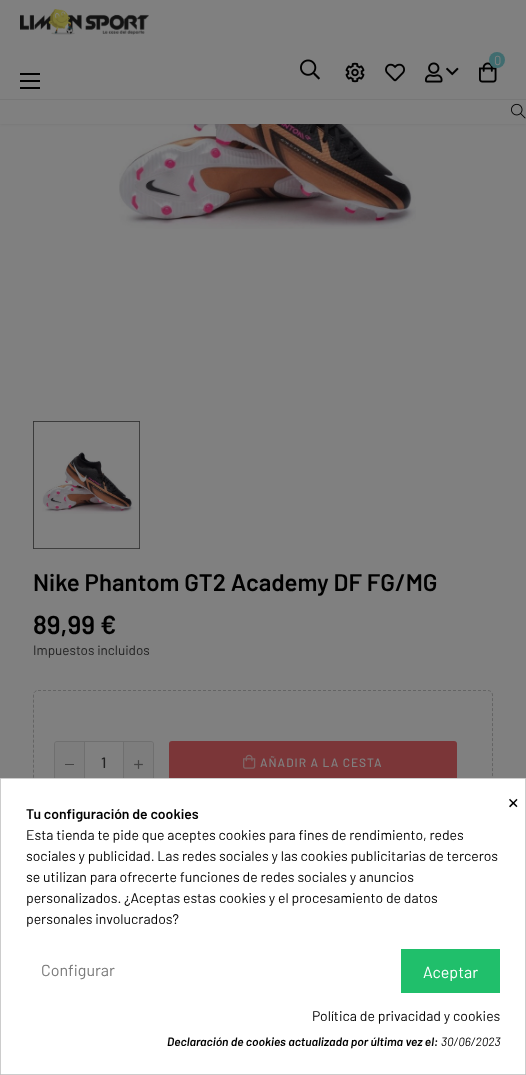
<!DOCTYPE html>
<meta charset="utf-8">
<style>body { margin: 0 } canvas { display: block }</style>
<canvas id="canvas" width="526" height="1075"></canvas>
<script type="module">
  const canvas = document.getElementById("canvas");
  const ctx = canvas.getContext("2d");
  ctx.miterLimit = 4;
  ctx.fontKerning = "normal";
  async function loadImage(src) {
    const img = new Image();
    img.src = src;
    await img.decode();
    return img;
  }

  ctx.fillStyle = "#808080";
  ctx.fillRect(0, 0, 526, 1075);
  ctx.drawImage(await loadImage("img9.png"), 119, 124, 297, 105);
  ctx.fillStyle = "rgba(0, 0, 0, 0.1)";
  ctx.filter = "blur(1.5px)";
  ctx.beginPath();
  ctx.rect(0, 0, 526, 124);
  ctx.fill();
  ctx.filter = "none";
  ctx.fillStyle = "#808080";
  ctx.fillRect(0, 0, 526, 124);
  ctx.drawImage(await loadImage("img1.png"), 20, 9, 129, 26);
  ctx.drawImage(await loadImage("img2.png"), 300, 59, 20, 21);
  ctx.drawImage(await loadImage("img3.png"), 345, 62, 20, 21);
  ctx.drawImage(await loadImage("img4.png"), 385, 63, 20, 19);
  ctx.drawImage(await loadImage("img5.png"), 425, 62, 18, 21);
  ctx.drawImage(await loadImage("img6.png"), 446, 67, 13, 9);
  ctx.drawImage(await loadImage("img7.png"), 479, 62, 18, 21);
  ctx.fillStyle = "#406c6f";
  ctx.beginPath();
  ctx.arc(497, 60, 8, 0, Math.PI * 2);
  ctx.fill();
  ctx.font = "13px Barlow";
  ctx.fillStyle = "#808080";
  ctx.fillText("0", 494, 65);
  ctx.fillStyle = "#777777";
  ctx.fillRect(0, 99, 526, 1);
  ctx.fillStyle = "#000000";
  ctx.fillRect(20, 73, 20, 2);
  ctx.fillRect(20, 87, 20, 2);
  ctx.fillRect(20, 80, 20, 2);
  ctx.drawImage(await loadImage("img8.png"), 511, 103, 15, 16);
  ctx.strokeStyle = "#333333";
  ctx.strokeRect(33.5, 421.5, 106, 127);
  ctx.drawImage(await loadImage("img10.png"), 33, 421, 107, 128);
  ctx.font = "600 24px Barlow";
  ctx.fillText("Nike Phantom GT2 Academy DF FG/MG", 33, 591);
  ctx.font = "600 26px Barlow";
  ctx.fillText("89,99 €", 33, 634);
  ctx.font = "13.5px Barlow";
  ctx.fillStyle = "#222222";
  ctx.fillText("Impuestos incluidos", 33, 655);
  ctx.beginPath();
  ctx.moveTo(38, 690.5);
  ctx.lineTo(488, 690.5);
  ctx.bezierCurveTo(490.5, 690.5, 492.5, 692.5, 492.5, 695);
  ctx.lineTo(492.5, 831);
  ctx.bezierCurveTo(492.5, 833.5, 490.5, 835.5, 488, 835.5);
  ctx.lineTo(38, 835.5);
  ctx.bezierCurveTo(35.5, 835.5, 33.5, 833.5, 33.5, 831);
  ctx.lineTo(33.5, 695);
  ctx.bezierCurveTo(33.5, 692.5, 35.5, 690.5, 38, 690.5);
  ctx.closePath();
  ctx.strokeStyle = "#646464";
  ctx.setLineDash([3, 2]);
  ctx.stroke();
  ctx.beginPath();
  ctx.roundRect(54.5, 741.5, 99, 41, 2.5);
  ctx.strokeStyle = "#6f6f6f";
  ctx.setLineDash([]);
  ctx.stroke();
  ctx.fillStyle = "#7d7d7d";
  ctx.beginPath();
  ctx.roundRect(55, 742, 30, 40, [3, 0, 0, 3]);
  ctx.fill();
  ctx.fillStyle = "#6f6f6f";
  ctx.fillRect(84, 742, 1, 40);
  ctx.fillStyle = "#444444";
  ctx.fillRect(65, 764, 9, 1);
  ctx.fillStyle = "#7d7d7d";
  ctx.beginPath();
  ctx.roundRect(123, 742, 30, 40, [0, 3, 3, 0]);
  ctx.fill();
  ctx.fillStyle = "#6f6f6f";
  ctx.fillRect(123, 742, 1, 40);
  ctx.drawImage(await loadImage("img11.png"), 134, 760, 9, 9);
  ctx.font = "500 15px Barlow";
  ctx.fillStyle = "#222222";
  ctx.fillText("1", 101, 768);
  ctx.fillStyle = "#7b3638";
  ctx.beginPath();
  ctx.roundRect(169, 741, 288, 42, 3);
  ctx.fill();
  ctx.drawImage(await loadImage("img12.png"), 243, 754, 13, 15);
  ctx.letterSpacing = "1px";
  ctx.font = "500 12px Barlow";
  ctx.fillStyle = "#808080";
  ctx.fillText("AÑADIR A LA CESTA", 260, 767);
  ctx.fillStyle = "#ffffff";
  ctx.beginPath();
  ctx.rect(0.5, 778.5, 525, 296);
  ctx.fill();
  ctx.strokeStyle = "#cccccc";
  ctx.stroke();
  ctx.letterSpacing = "0px";
  ctx.font = "25px Barlow";
  ctx.fillStyle = "#000000";
  ctx.fillText("×", 508, 811);
  ctx.font = "600 14px Barlow";
  ctx.fillText("Tu configuración de cookies", 26, 819);
  ctx.font = "14px Barlow";
  ctx.fillText("Esta tienda te pide que aceptes cookies para fines de rendimiento, redes", 26, 840);
  ctx.fillText("sociales y publicidad. Las redes sociales y las cookies publicitarias de terceros", 26, 861);
  ctx.fillText("se utilizan para ofrecerte funciones de redes sociales y anuncios", 26, 882);
  ctx.fillText("personalizados. ¿Aceptas estas cookies y el procesamiento de datos", 26, 903);
  ctx.fillText("personales involucrados?", 26, 924);
  ctx.font = "16px Barlow";
  ctx.fillStyle = "#7a7a7a";
  ctx.fillText("Configurar", 41, 976);
  ctx.fillStyle = "#20bf6b";
  ctx.fillRect(401, 949, 99, 44);
  ctx.fillStyle = "#ffffff";
  ctx.fillText("Aceptar", 423, 978);
  ctx.font = "14px Barlow";
  ctx.fillStyle = "#000000";
  ctx.fillText("Política de privacidad y cookies", 312, 1021);
  ctx.font = "italic 600 12px Barlow";
  ctx.fillText("Declaración de cookies actualizada por última vez el:", 167, 1046);
  ctx.font = "italic 12px Barlow";
  ctx.fillText("30/06/2023", 441, 1046);
</script>
